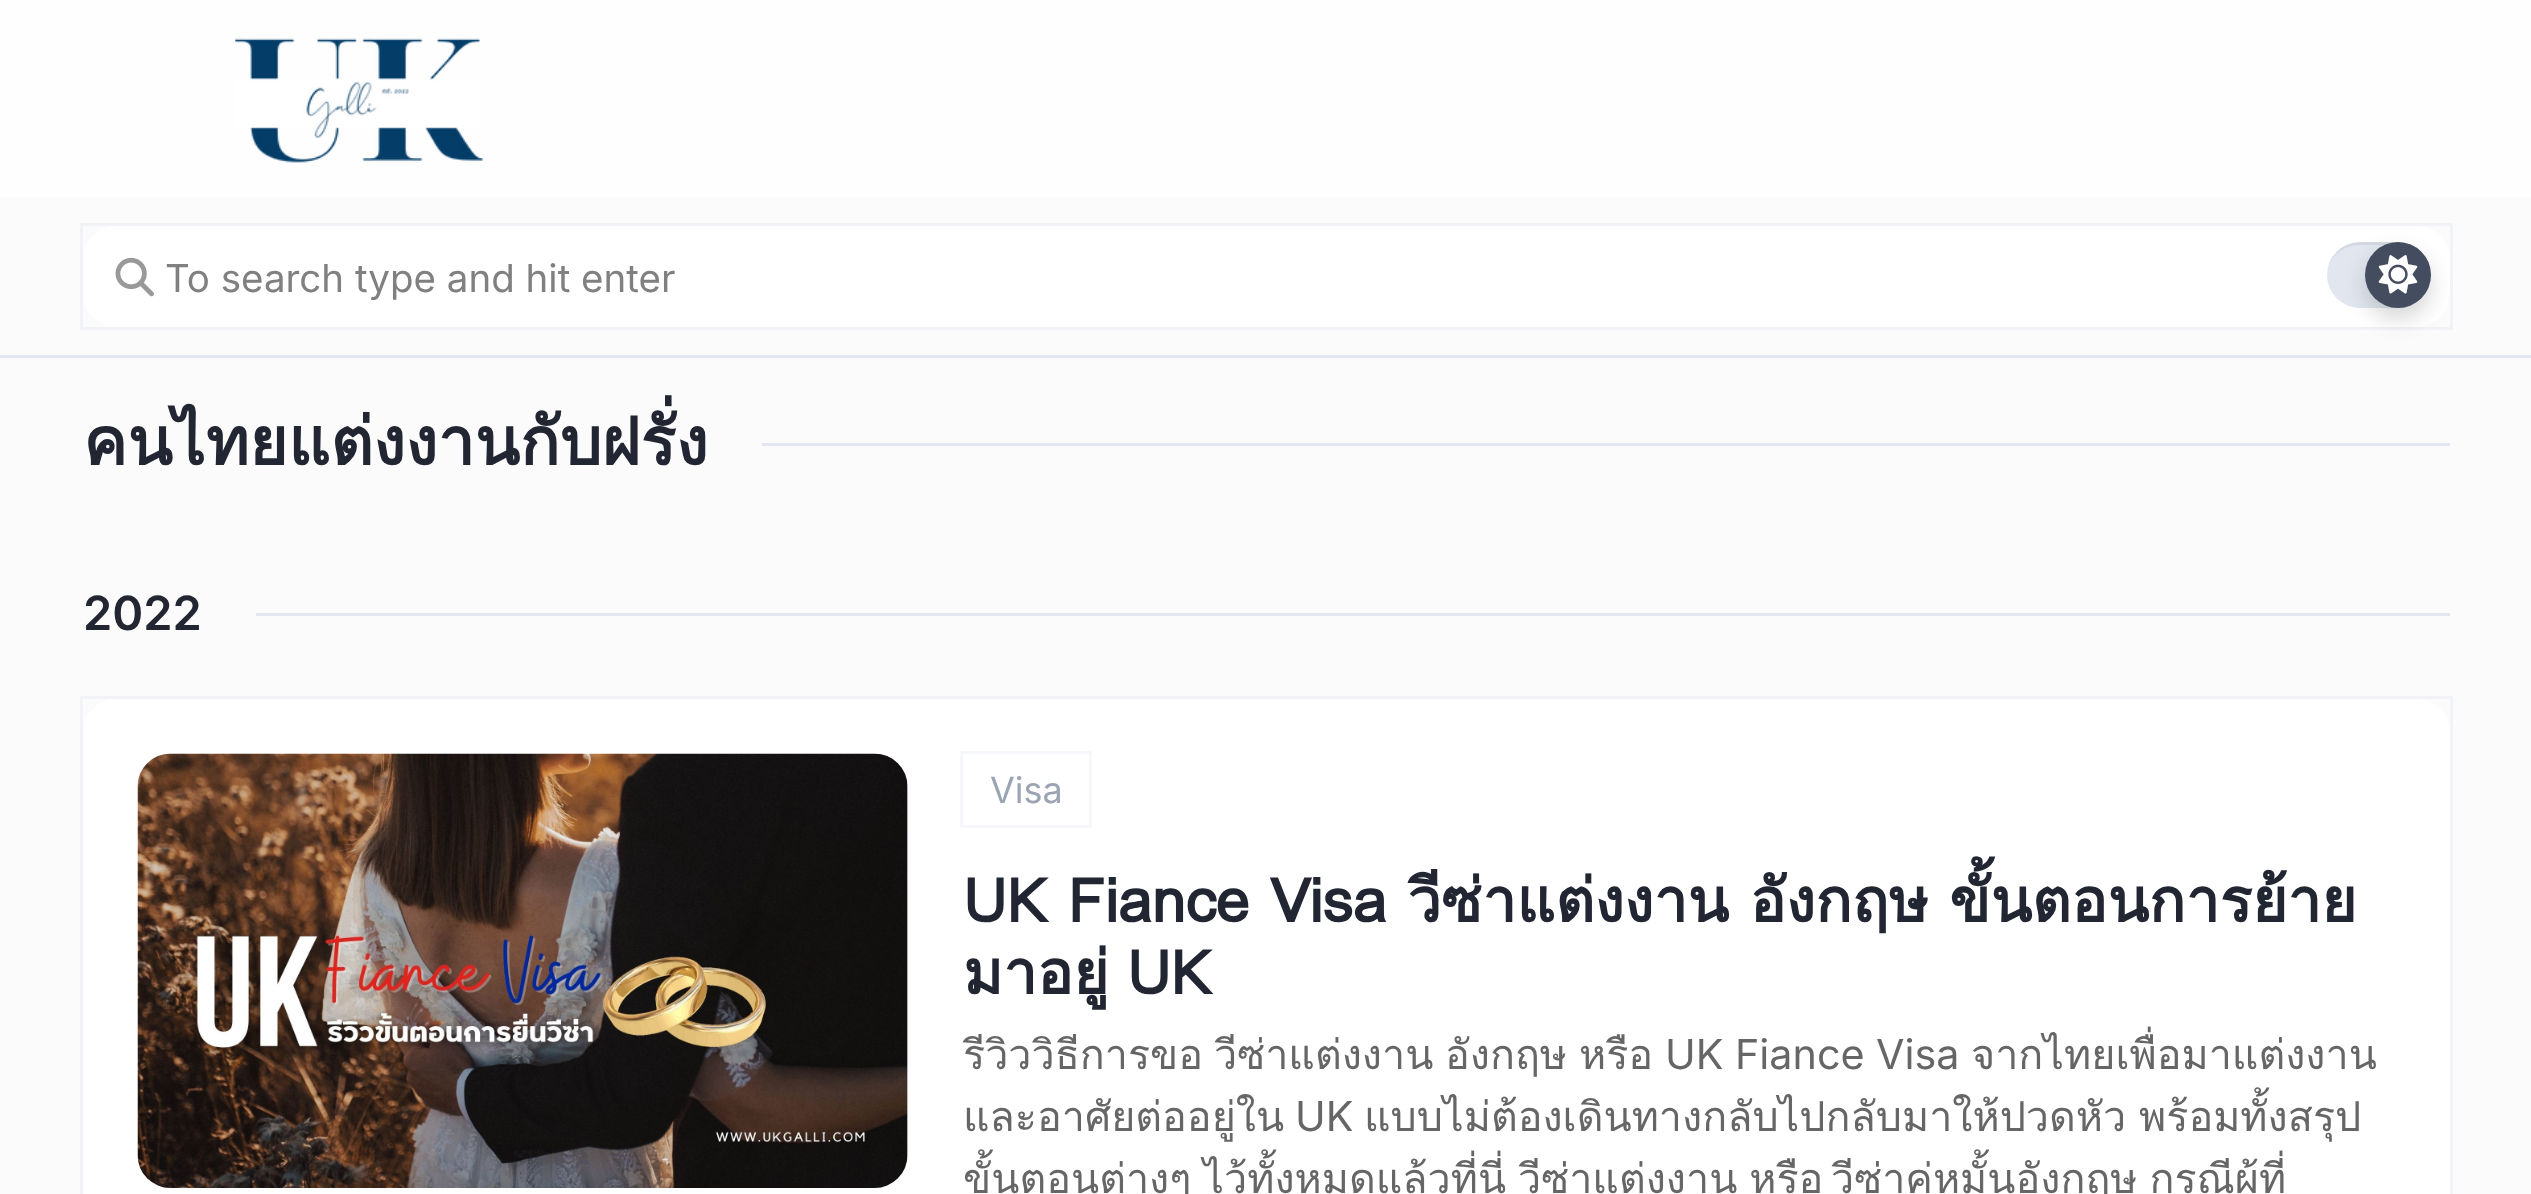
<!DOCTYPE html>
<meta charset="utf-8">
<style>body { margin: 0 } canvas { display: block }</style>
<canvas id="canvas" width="2531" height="1194"></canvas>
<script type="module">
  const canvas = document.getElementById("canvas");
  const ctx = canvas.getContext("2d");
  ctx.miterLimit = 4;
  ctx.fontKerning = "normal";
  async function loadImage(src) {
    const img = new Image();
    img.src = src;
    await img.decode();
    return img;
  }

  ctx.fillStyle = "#fbfbfc";
  ctx.fillRect(0, 0, 2531, 1194);
  ctx.fillStyle = "#fefeff";
  ctx.fillRect(0, 0, 2531, 198);
  ctx.drawImage(await loadImage("img1.png"), 235, 38, 248, 125);
  ctx.fillStyle = "#e2e7ef";
  ctx.fillRect(0, 355, 2531, 3);
  ctx.strokeStyle = "rgba(14, 63, 126, 0.04)";
  ctx.lineWidth = 3;
  ctx.strokeRect(81.5, 224.5, 2370, 104);
  ctx.fillStyle = "#ffffff";
  ctx.beginPath();
  ctx.roundRect(83, 226, 2367, 101, 33);
  ctx.fill();
  ctx.drawImage(await loadImage("img2.png"), 115, 257, 39, 40);
  ctx.font = "38.5px Inter";
  ctx.fillStyle = "#808080";
  ctx.fillText("To search type and hit enter", 165, 292);
  ctx.fillStyle = "#e2e7ef";
  ctx.beginPath();
  ctx.roundRect(2327, 242, 104, 66, 33);
  ctx.fill();
  ctx.fillStyle = "rgba(0, 0, 0, 0.06)";
  ctx.beginPath();
  ctx.moveTo(2360, 245);
  ctx.lineTo(2398, 245);
  ctx.bezierCurveTo(2416, 245, 2430, 259, 2431, 277);
  ctx.lineTo(2431, 275);
  ctx.bezierCurveTo(2431, 257, 2416, 242, 2398, 242);
  ctx.lineTo(2360, 242);
  ctx.bezierCurveTo(2345, 242, 2332, 253, 2328, 267);
  ctx.bezierCurveTo(2333, 254, 2345, 245, 2360, 245);
  ctx.closePath();
  ctx.fill();
  ctx.fillStyle = "rgba(0, 0, 0, 0.16)";
  ctx.filter = "blur(11px)";
  ctx.beginPath();
  ctx.roundRect(2365, 253, 66, 66, 33);
  ctx.fill();
  ctx.filter = "none";
  ctx.fillStyle = "#444c5f";
  ctx.beginPath();
  ctx.arc(2398, 275, 33, 0, Math.PI * 2);
  ctx.fill();
  ctx.drawImage(await loadImage("img3.png"), 2378, 255, 40, 39);
  ctx.font = "bold 66px Loma";
  ctx.fillStyle = "#212632";
  ctx.fillText("คนไทยแต่งงานกับฝรั่ง", 83, 465);
  ctx.fillStyle = "#e2e7ef";
  ctx.fillRect(762, 443, 1688, 3);
  ctx.font = "600 47px Inter";
  ctx.fillStyle = "#212632";
  ctx.fillText("2022", 83, 630);
  ctx.fillStyle = "#e2e7ef";
  ctx.fillRect(256, 613, 2194, 3);
  ctx.strokeRect(81.5, 697.5, 2370, 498);
  ctx.fillStyle = "#ffffff";
  ctx.beginPath();
  ctx.roundRect(83, 699, 2367, 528, 33);
  ctx.fill();
  ctx.fillStyle = "#e2e7ef";
  ctx.beginPath();
  ctx.roundRect(138, 754, 770, 434, 33);
  ctx.fill();
  ctx.drawImage(await loadImage("img4.png"), 137, 753, 771, 435);
  ctx.strokeRect(961.5, 752.5, 129, 74);
  ctx.fillStyle = "#ffffff";
  ctx.beginPath();
  ctx.roundRect(963, 754, 126, 71, 35.5);
  ctx.fill();
  ctx.font = "36px Inter";
  ctx.fillStyle = "#9ba4b3";
  ctx.fillText("Visa", 990, 803);
  ctx.wordSpacing = "0.25px";
  ctx.font = "bold 60.5px Loma";
  ctx.fillStyle = "#212632";
  ctx.fillText("UK Fiance Visa วีซ่าแต่งงาน อังกฤษ ขั้นตอนการย้าย", 963, 922);
  ctx.wordSpacing = "-2px";
  ctx.fillText("มาอยู่ UK", 963, 994);
  ctx.wordSpacing = "0px";
  ctx.font = "41.25px Loma";
  ctx.fillStyle = "#666666";
  ctx.fillText("รีวิววิธีการขอ", 963, 1069);
  ctx.fillText("วีซ่าแต่งงาน", 1214, 1069);
  ctx.fillText("อังกฤษ", 1445, 1069);
  ctx.fillText("หรือ", 1579, 1069);
  ctx.font = "41.25px Inter";
  ctx.fillText("UK Fiance Visa", 1665, 1069);
  ctx.font = "41.25px Loma";
  ctx.fillText("จากไทยเพื่อมาแต่งงาน", 1971, 1069);
  ctx.fillText("และอาศัยต่ออยู่ใน", 963, 1131);
  ctx.font = "41.25px Inter";
  ctx.fillText("UK", 1295, 1131);
  ctx.wordSpacing = "-1px";
  ctx.font = "41.25px Loma";
  ctx.fillText("แบบไม่ต้องเดินทางกลับไปกลับมาให้ปวดหัว พร้อมทั้งสรุป", 1364, 1131);
  ctx.wordSpacing = "-2px";
  ctx.fillText("ขั้นตอนต่างๆ ไว้ทั้งหมดแล้วที่นี่ วีซ่าแต่งงาน หรือ", 963, 1193);
  ctx.fillText("วีซ่าคู่หมั้นอังกฤษ กรณีผู้ที่", 1831, 1193);
</script>
